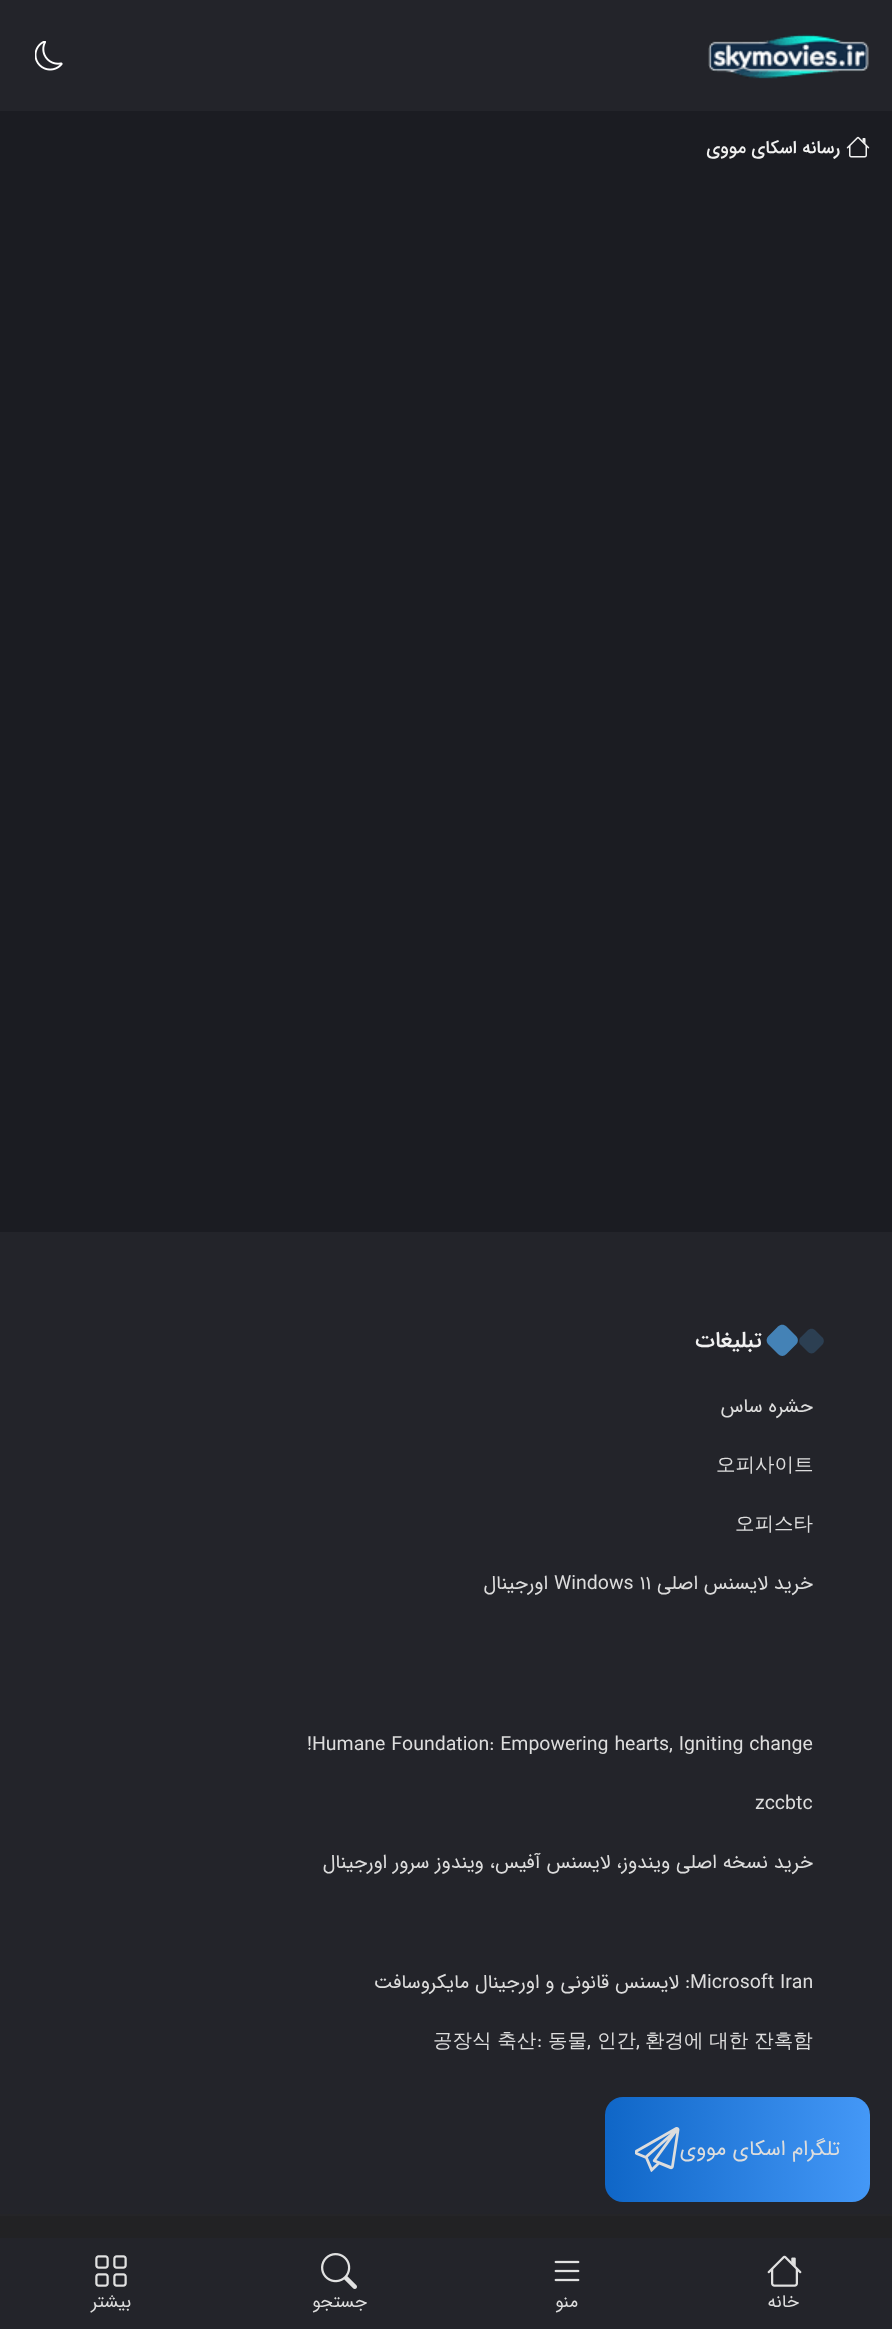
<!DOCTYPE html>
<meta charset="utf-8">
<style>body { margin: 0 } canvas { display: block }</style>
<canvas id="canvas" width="892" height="2329"></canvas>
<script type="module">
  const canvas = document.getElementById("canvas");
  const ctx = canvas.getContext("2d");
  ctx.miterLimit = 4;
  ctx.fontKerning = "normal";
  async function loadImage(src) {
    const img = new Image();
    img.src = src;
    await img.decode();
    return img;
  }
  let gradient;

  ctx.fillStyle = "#1b1c22";
  ctx.fillRect(0, 0, 892, 2329);
  ctx.fillStyle = "#23242a";
  ctx.fillRect(0, 0, 892, 111);
  ctx.drawImage(await loadImage("img1.png"), 708, 34, 161, 45);
  ctx.drawImage(await loadImage("img2.png"), 35, 41, 28, 30);
  ctx.drawImage(await loadImage("img3.png"), 846, 136, 24, 22);
  ctx.direction = "rtl";
  ctx.font = "500 18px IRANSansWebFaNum";
  ctx.fillStyle = "#f1f1f1";
  ctx.fillText("رسانه اسکای مووی", 840, 153);
  ctx.fillStyle = "#23242a";
  ctx.fillRect(0, 1232, 892, 982);
  ctx.fillStyle = "#2c3f52";
  ctx.beginPath();
  ctx.moveTo(815.5, 1330.5);
  ctx.lineTo(822, 1337);
  ctx.bezierCurveTo(824.5, 1339, 824.5, 1343, 822, 1345);
  ctx.lineTo(815.5, 1351.5);
  ctx.bezierCurveTo(813.5, 1354, 809.5, 1354, 807.5, 1351.5);
  ctx.lineTo(801, 1345);
  ctx.bezierCurveTo(798.5, 1343, 798.5, 1339, 801, 1337);
  ctx.lineTo(807.5, 1330.5);
  ctx.bezierCurveTo(809.5, 1328, 813.5, 1328, 815.5, 1330.5);
  ctx.closePath();
  ctx.fill();
  ctx.fillStyle = "#4482b6";
  ctx.beginPath();
  ctx.moveTo(786.5, 1326.5);
  ctx.lineTo(796, 1336);
  ctx.bezierCurveTo(798.5, 1338.5, 798.5, 1342, 796, 1344.5);
  ctx.lineTo(786.5, 1354);
  ctx.bezierCurveTo(784, 1356.5, 780.5, 1356.5, 778, 1354);
  ctx.lineTo(768.5, 1344.5);
  ctx.bezierCurveTo(766, 1342, 766, 1338.5, 768.5, 1336);
  ctx.lineTo(778, 1326.5);
  ctx.bezierCurveTo(780.5, 1324, 784, 1324, 786.5, 1326.5);
  ctx.closePath();
  ctx.fill();
  ctx.font = "500 22.5px IRANSansWebFaNum";
  ctx.fillStyle = "#f1f1f1";
  ctx.fillText("تبلیغات", 762, 1347);
  ctx.font = "19.5px IRANSansWebFaNum";
  ctx.fillStyle = "#dddddd";
  ctx.fillText("حشره ساس", 813, 1412);
  ctx.direction = "ltr";
  ctx.font = "500 19.5px WenQuanYi Zen Hei";
  ctx.fillText("오피사이트", 716, 1471);
  ctx.fillText("오피스타", 735, 1530);
  ctx.direction = "rtl";
  ctx.font = "19.5px IRANSansWebFaNum";
  ctx.fillText("خرید لایسنس اصلی", 813, 1589);
  ctx.direction = "ltr";
  ctx.fillText("Windows 11", 554, 1589);
  ctx.direction = "rtl";
  ctx.fillText("اورجینال", 548, 1589);
  ctx.direction = "ltr";
  ctx.fillText("!Humane Foundation: Empowering hearts, Igniting change", 307, 1750);
  ctx.fillText("zccbtc", 755, 1809);
  ctx.direction = "rtl";
  ctx.fillText("خرید نسخه اصلی ویندوز، لایسنس آفیس، ویندوز سرور اورجینال", 813, 1868);
  ctx.direction = "ltr";
  ctx.fillText("Microsoft Iran", 690, 1988);
  ctx.direction = "rtl";
  ctx.fillText(": لایسنس قانونی و اورجینال مایکروسافت", 690, 1988);
  ctx.direction = "ltr";
  ctx.font = "500 19.5px WenQuanYi Zen Hei";
  ctx.fillText("환경에 대한 잔혹함", 645, 2047);
  ctx.fillText("인간", 597, 2047);
  ctx.font = "19.5px IRANSansWebFaNum";
  ctx.fillText(",", 636, 2047);
  ctx.fillText(",", 587, 2047);
  ctx.font = "500 19.5px WenQuanYi Zen Hei";
  ctx.fillText("동물", 548, 2047);
  ctx.font = "19.5px IRANSansWebFaNum";
  ctx.fillText(":", 537, 2047);
  ctx.font = "500 19.5px WenQuanYi Zen Hei";
  ctx.fillText("공장식 축산", 433, 2047);
  gradient = ctx.createLinearGradient(605, 2150, 870, 2150);
  gradient.addColorStop(0, "#0f66c7");
  gradient.addColorStop(1, "#4498f7");
  ctx.fillStyle = gradient;
  ctx.beginPath();
  ctx.roundRect(605, 2097, 265, 105, 18);
  ctx.fill();
  ctx.direction = "rtl";
  ctx.font = "21px IRANSansWebFaNum";
  ctx.fillStyle = "#dddddd";
  ctx.fillText("تلگرام اسکای مووی", 840, 2155);
  ctx.drawImage(await loadImage("img4.png"), 635, 2127, 45, 45);
  ctx.fillStyle = "#222224";
  ctx.fillRect(0, 2216, 892, 22);
  ctx.fillStyle = "#252528";
  ctx.fillRect(0, 2214, 892, 2);
  ctx.fillStyle = "#23242a";
  ctx.fillRect(0, 2238, 892, 91);
  ctx.drawImage(await loadImage("img5.png"), 767, 2255, 35, 32);
  ctx.font = "18px IRANSansWebFaNum";
  ctx.fillStyle = "#dddddd";
  ctx.fillText("خانه", 799, 2307);
  ctx.drawImage(await loadImage("img6.png"), 554, 2260, 26, 22);
  ctx.fillText("منو", 578, 2307);
  ctx.drawImage(await loadImage("img7.png"), 321, 2253, 36, 36);
  ctx.fillText("جستجو", 367, 2307);
  ctx.drawImage(await loadImage("img8.png"), 95, 2255, 32, 32);
  ctx.fillText("بیشتر", 131, 2307);
</script>
